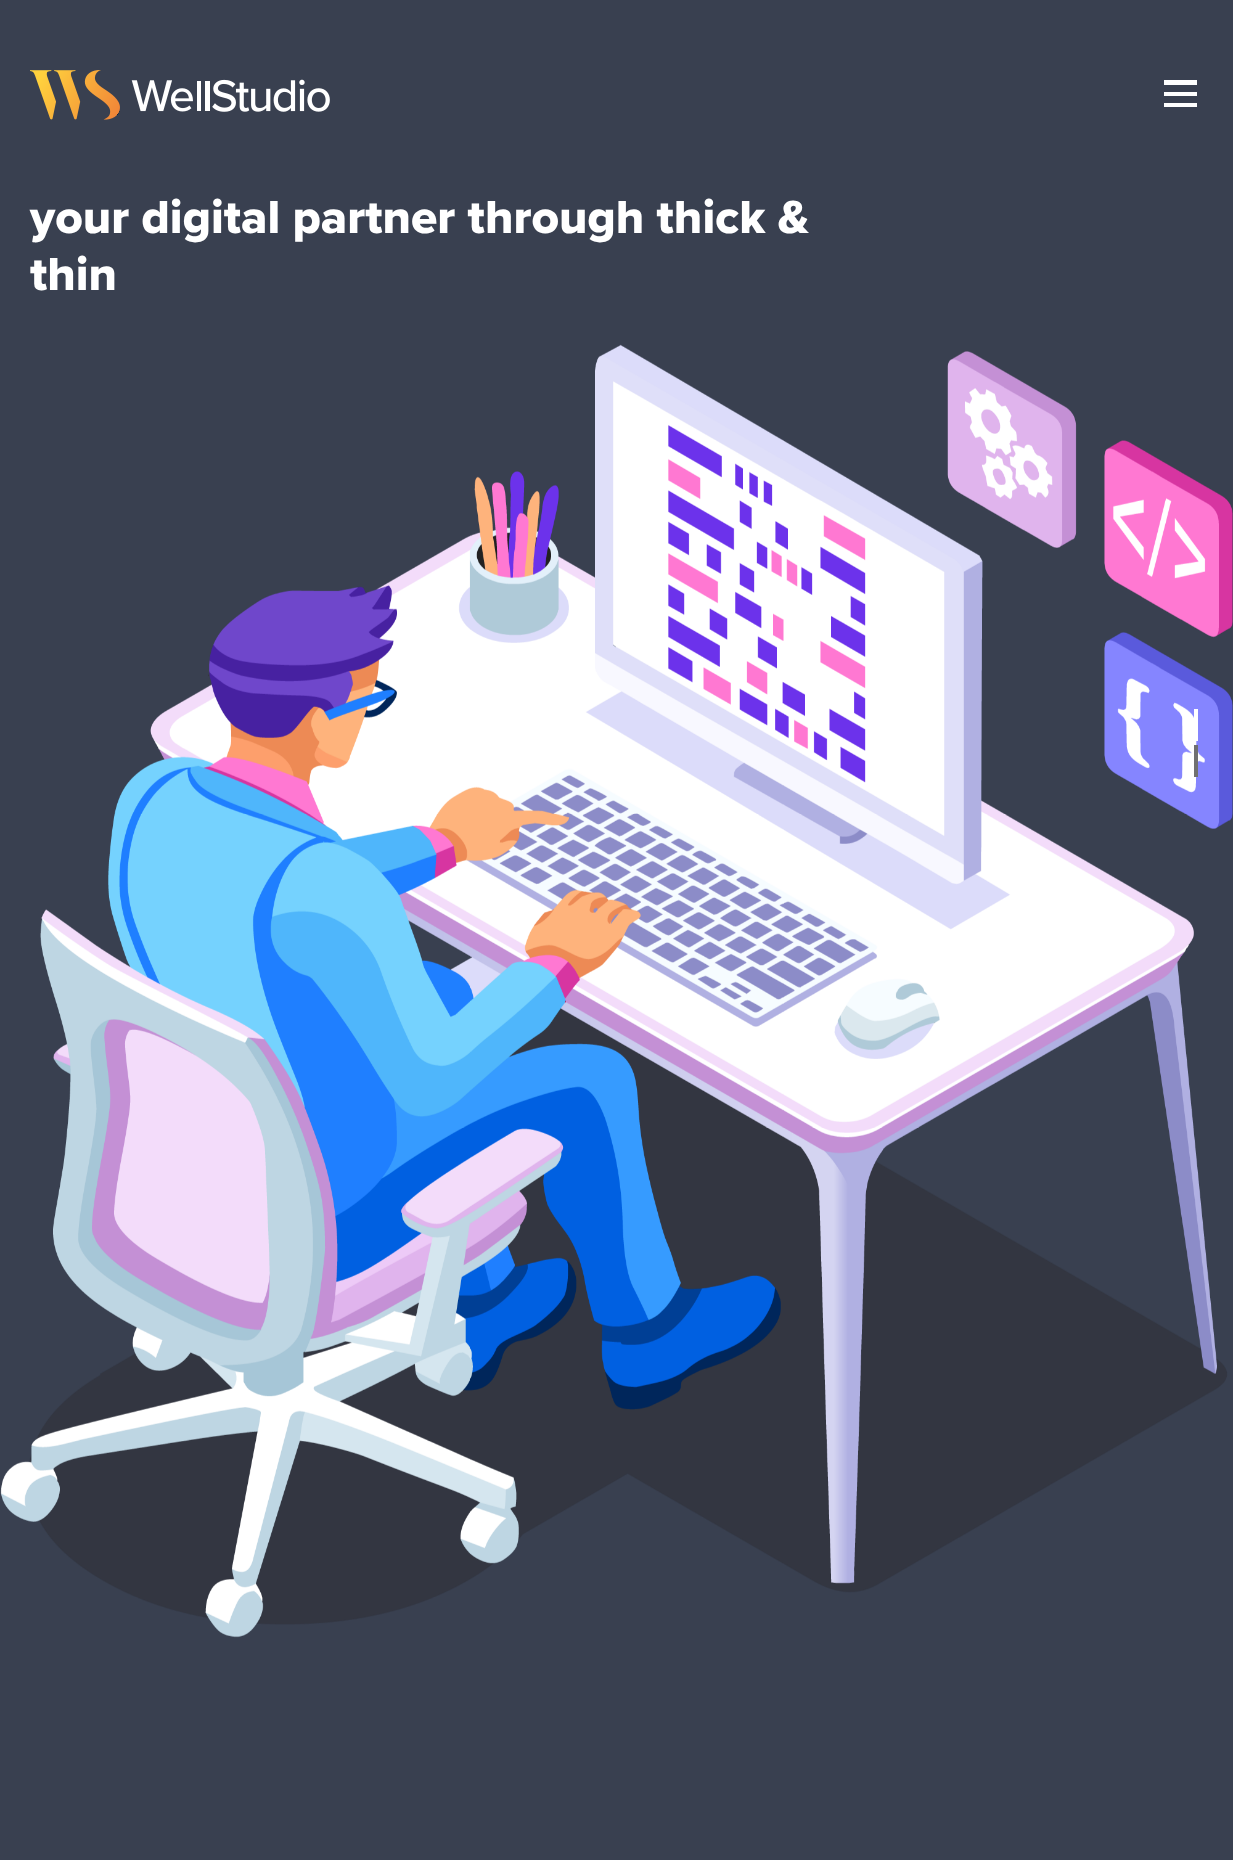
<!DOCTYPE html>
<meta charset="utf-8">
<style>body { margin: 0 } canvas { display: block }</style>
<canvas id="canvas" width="1233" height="1860"></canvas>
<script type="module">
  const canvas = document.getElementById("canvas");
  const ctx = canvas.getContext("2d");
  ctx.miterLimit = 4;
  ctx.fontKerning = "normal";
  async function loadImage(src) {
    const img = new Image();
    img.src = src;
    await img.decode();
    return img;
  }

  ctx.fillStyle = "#394050";
  ctx.fillRect(0, 0, 1233, 1860);
  ctx.fillStyle = "#ffffff";
  ctx.fillRect(1164, 80, 33, 5);
  ctx.fillRect(1164, 92, 33, 4);
  ctx.fillRect(1164, 103, 33, 4);
  ctx.drawImage(await loadImage("img1.png"), 30, 70, 300, 50);
  ctx.font = "800 48px Proxima Nova";
  ctx.fillText("your digital partner through thick &", 30, 233);
  ctx.fillText("thin", 30, 290);
  ctx.drawImage(await loadImage("img2.png"), 0, 344, 1233, 1294);
  ctx.fillRect(1194, 709, 4, 32);
  ctx.fillStyle = "#707070";
  ctx.fillRect(1194, 745, 4, 32);
</script>
